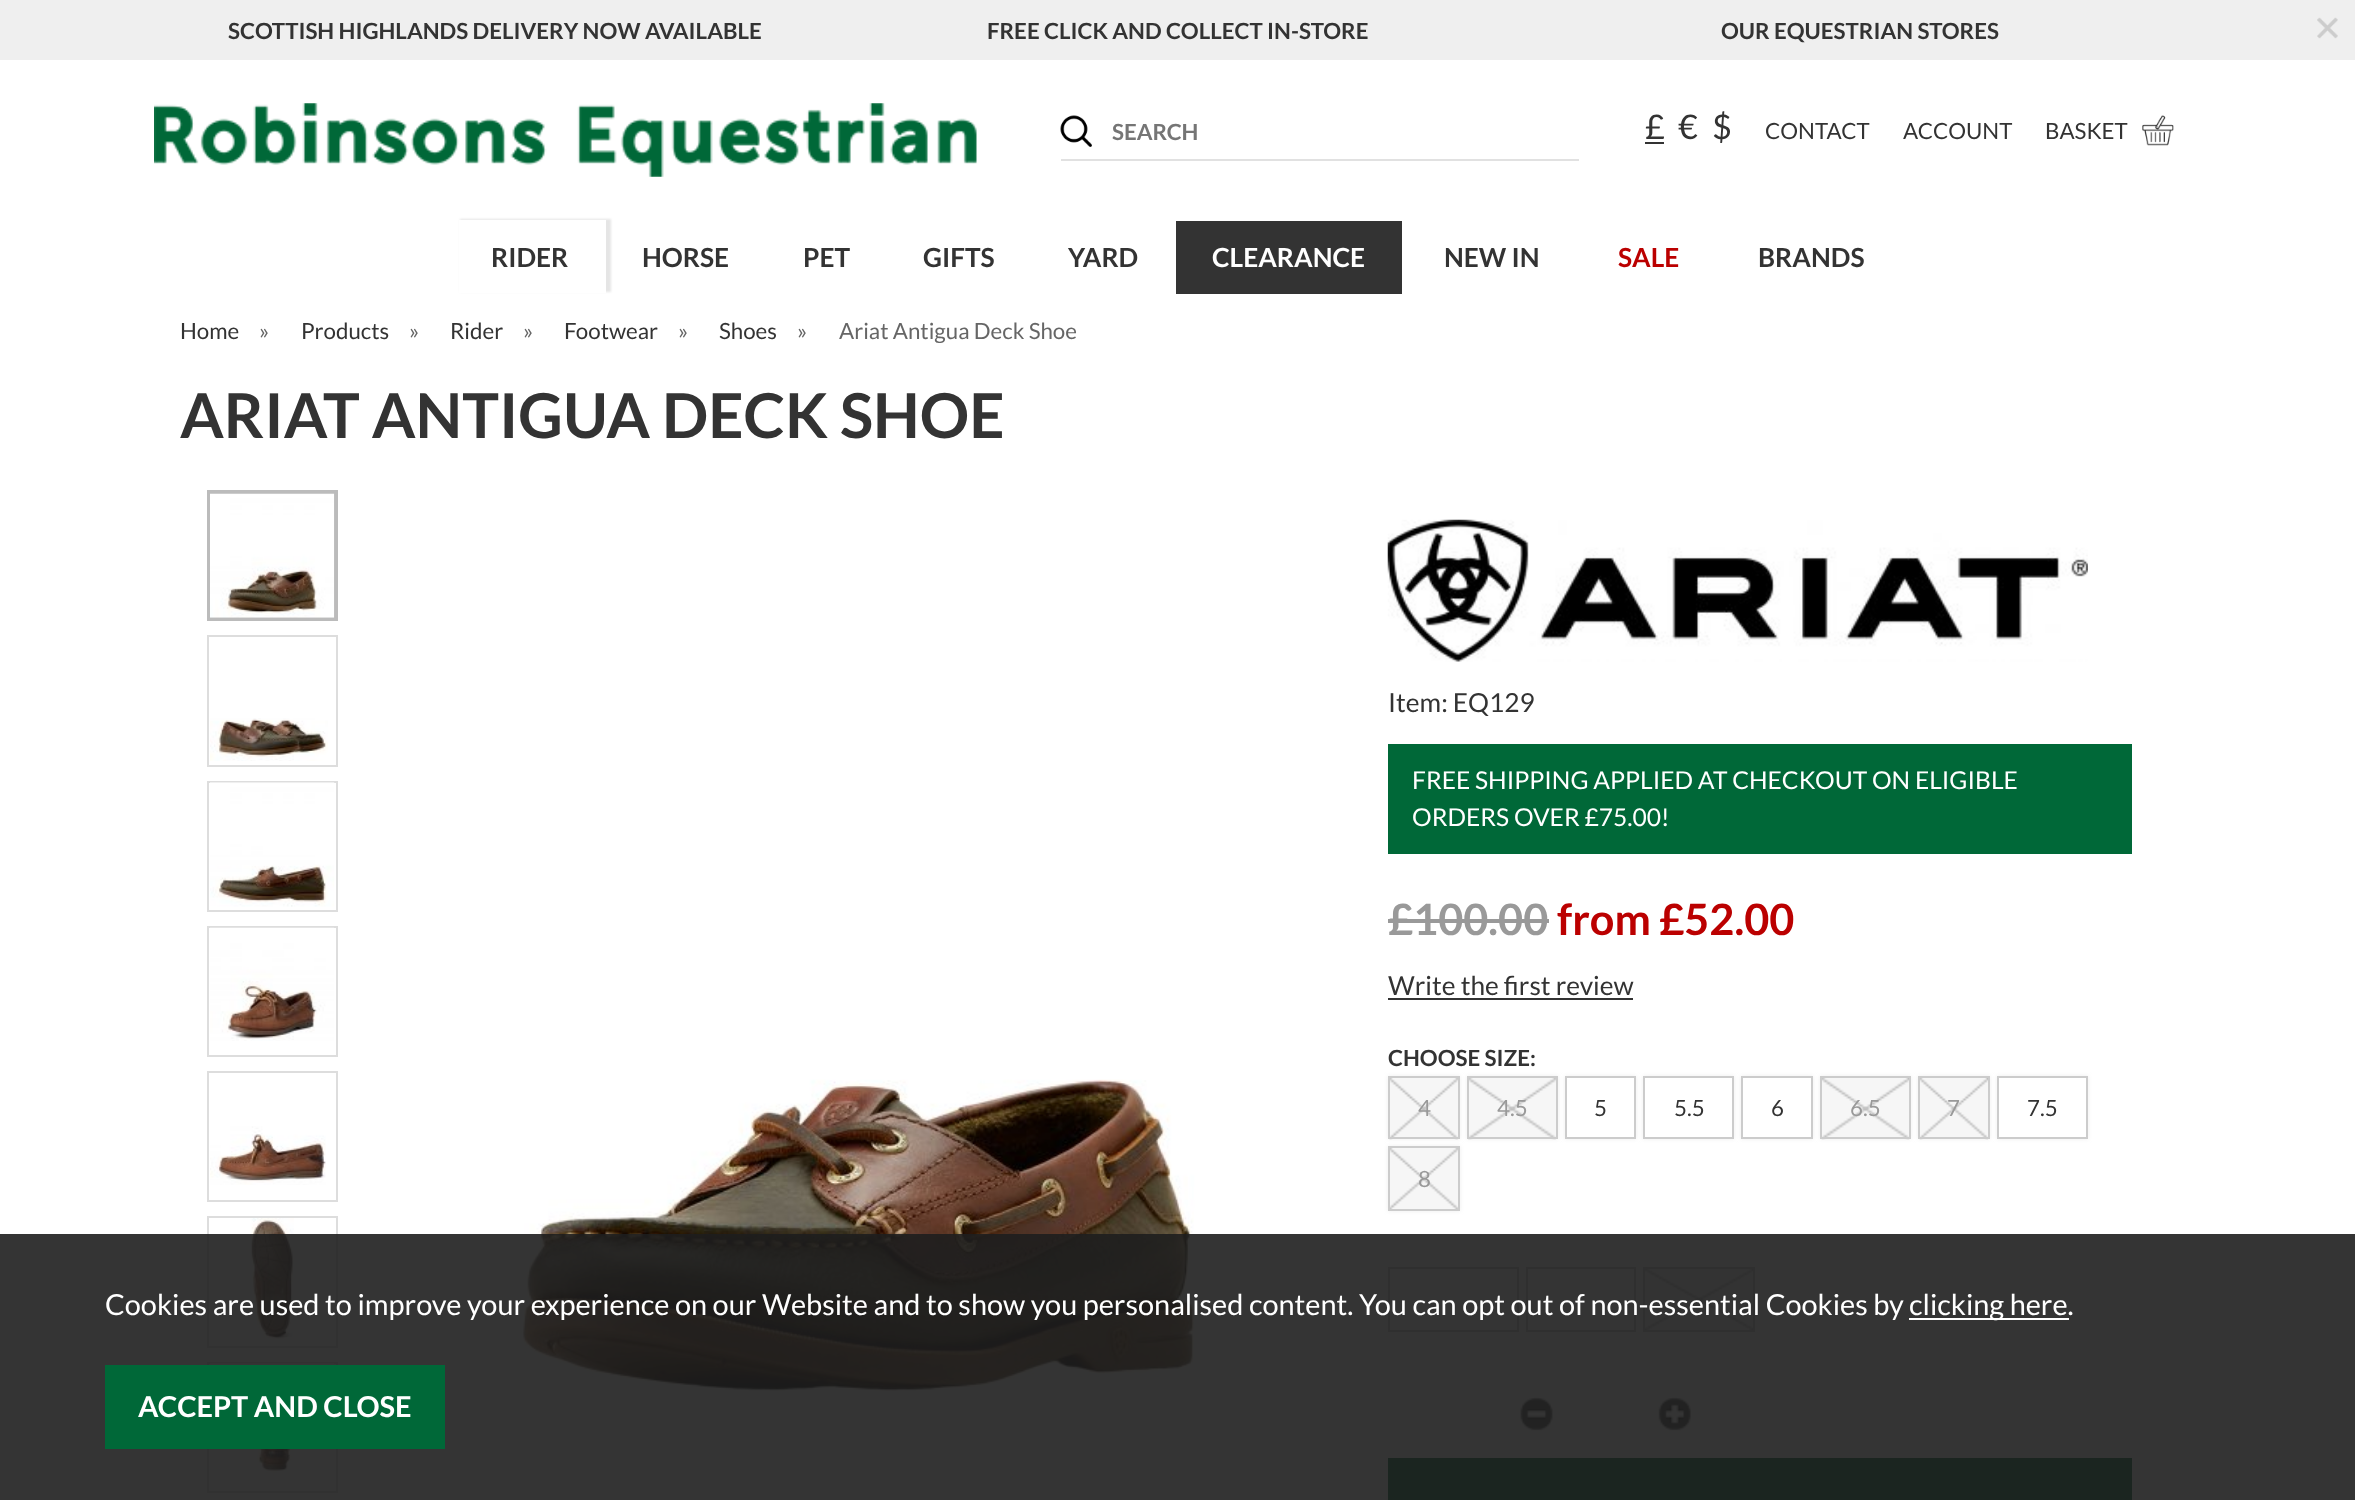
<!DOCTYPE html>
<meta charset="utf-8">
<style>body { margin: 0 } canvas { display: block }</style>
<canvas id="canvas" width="2355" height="1500"></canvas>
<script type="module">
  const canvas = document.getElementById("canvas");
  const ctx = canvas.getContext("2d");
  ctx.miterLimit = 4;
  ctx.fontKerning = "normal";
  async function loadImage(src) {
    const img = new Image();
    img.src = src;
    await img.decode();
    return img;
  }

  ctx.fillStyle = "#ffffff";
  ctx.fillRect(0, 0, 2355, 1500);
  ctx.fillStyle = "#efefef";
  ctx.fillRect(0, 0, 2355, 60);
  ctx.font = "bold 22.3px Lato";
  ctx.fillStyle = "#333333";
  ctx.fillText("SCOTTISH HIGHLANDS DELIVERY NOW AVAILABLE", 228, 39);
  ctx.fillText("FREE CLICK AND COLLECT IN-STORE", 987, 39);
  ctx.fillText("OUR EQUESTRIAN STORES", 1721, 39);
  ctx.drawImage(await loadImage("img1.png"), 2317, 17, 21, 22);
  ctx.drawImage(await loadImage("img2.png"), 154, 103, 823, 74);
  ctx.drawImage(await loadImage("img3.png"), 1060, 115, 32, 32);
  ctx.fillStyle = "#e1e1e1";
  ctx.fillRect(1061, 159, 518, 2);
  ctx.fillStyle = "#757575";
  ctx.fillText("SEARCH", 1112, 140);
  ctx.font = "34px Lato";
  ctx.fillStyle = "#333333";
  ctx.fillText("£", 1645, 139);
  ctx.fillRect(1645, 142, 19, 2);
  ctx.fillText("€", 1678, 139);
  ctx.fillText("$", 1712, 139);
  ctx.font = "22.3px Lato";
  ctx.fillText("CONTACT", 1765, 139);
  ctx.fillText("ACCOUNT", 1903, 139);
  ctx.fillText("BASKET", 2045, 139);
  ctx.drawImage(await loadImage("img4.png"), 2142, 115, 32, 31);
  ctx.fillStyle = "rgba(0, 0, 0, 0.1)";
  ctx.filter = "blur(1px)";
  ctx.beginPath();
  ctx.rect(460, 219, 151, 73);
  ctx.fill();
  ctx.filter = "none";
  ctx.fillStyle = "#ffffff";
  ctx.fillRect(459, 220, 147, 73);
  ctx.font = "bold 26.25px Lato";
  ctx.fillStyle = "#333333";
  ctx.fillText("RIDER", 491, 267);
  ctx.fillText("HORSE", 642, 267);
  ctx.fillText("PET", 803, 267);
  ctx.fillText("GIFTS", 923, 267);
  ctx.fillText("YARD", 1068, 267);
  ctx.fillRect(1176, 221, 226, 73);
  ctx.fillStyle = "#ffffff";
  ctx.fillText("CLEARANCE", 1212, 267);
  ctx.fillStyle = "#333333";
  ctx.fillText("NEW IN", 1444, 267);
  ctx.fillStyle = "#bb0000";
  ctx.fillText("SALE", 1618, 267);
  ctx.fillStyle = "#333333";
  ctx.fillText("BRANDS", 1758, 267);
  ctx.font = "22.3px Lato";
  ctx.fillText("Home", 180, 339);
  ctx.fillStyle = "#666666";
  ctx.fillText("»", 259, 339);
  ctx.fillStyle = "#333333";
  ctx.fillText("Products", 301, 339);
  ctx.fillStyle = "#666666";
  ctx.fillText("»", 409, 339);
  ctx.fillStyle = "#333333";
  ctx.fillText("Rider", 450, 339);
  ctx.fillStyle = "#666666";
  ctx.fillText("»", 523, 339);
  ctx.fillStyle = "#333333";
  ctx.fillText("Footwear", 564, 339);
  ctx.fillStyle = "#666666";
  ctx.fillText("»", 678, 339);
  ctx.fillStyle = "#333333";
  ctx.fillText("Shoes", 719, 339);
  ctx.fillStyle = "#666666";
  ctx.fillText("»", 797, 339);
  ctx.fillText("Ariat Antigua Deck Shoe", 839, 339);
  ctx.font = "bold 61.75px Lato";
  ctx.fillStyle = "#333333";
  ctx.fillText("ARIAT ANTIGUA DECK SHOE", 180, 438);
  ctx.strokeStyle = "#bbbbbb";
  ctx.lineWidth = 4;
  ctx.strokeRect(209, 492, 127, 127);
  ctx.drawImage(await loadImage("img5.png"), 210, 493, 125, 125);
  ctx.strokeStyle = "#dddddd";
  ctx.lineWidth = 2;
  ctx.strokeRect(208, 636, 129, 130);
  ctx.drawImage(await loadImage("img6.png"), 210, 718, 118, 43);
  ctx.strokeRect(208, 782, 129, 129);
  ctx.drawImage(await loadImage("img7.png"), 210, 782, 125, 125);
  ctx.strokeRect(208, 927, 129, 129);
  ctx.drawImage(await loadImage("img8.png"), 210, 927, 124, 114);
  ctx.strokeRect(208, 1072, 129, 129);
  ctx.drawImage(await loadImage("img9.png"), 210, 1126, 116, 59);
  ctx.strokeRect(208, 1217, 129, 130);
  ctx.drawImage(await loadImage("img10.png"), 250, 1218, 44, 124);
  ctx.strokeRect(208, 1363, 129, 129);
  ctx.drawImage(await loadImage("img11.png"), 210, 1363, 125, 113);
  ctx.drawImage(await loadImage("img12.png"), 502, 1079, 693, 312);
  ctx.drawImage(await loadImage("img13.png"), 1387, 519, 701, 143);
  ctx.font = "26.25px Lato";
  ctx.fillText("Item: EQ129", 1388, 712);
  ctx.fillStyle = "#006838";
  ctx.fillRect(1388, 744, 744, 110);
  ctx.font = "24.6px Lato";
  ctx.fillStyle = "#ffffff";
  ctx.fillText("FREE SHIPPING APPLIED AT CHECKOUT ON ELIGIBLE", 1412, 789);
  ctx.fillText("ORDERS OVER £75.00!", 1412, 826);
  ctx.font = "bold 43.25px Lato";
  ctx.fillStyle = "#999999";
  ctx.fillText("£100.00", 1388, 935);
  ctx.fillRect(1388, 919, 161, 4);
  ctx.fillStyle = "#bb0000";
  ctx.fillText("from £52.00", 1557, 935);
  ctx.font = "26.25px Lato";
  ctx.fillStyle = "#333333";
  ctx.fillText("Write the first review", 1388, 995);
  ctx.fillRect(1388, 998, 245, 2);
  ctx.font = "bold 22.3px Lato";
  ctx.fillText("CHOOSE SIZE:", 1388, 1066);
  ctx.fillStyle = "#eeeeee";
  ctx.filter = "blur(2px)";
  ctx.beginPath();
  ctx.rect(1388, 1076, 72, 63);
  ctx.fill();
  ctx.filter = "none";
  ctx.fillStyle = "#f6f6f6";
  ctx.fillRect(1390, 1078, 68, 59);
  ctx.drawImage(await loadImage("img14.png"), 1389, 1078, 69, 62);
  ctx.strokeStyle = "#cccccc";
  ctx.strokeRect(1389, 1077, 70, 61);
  ctx.font = "22.3px Lato";
  ctx.fillStyle = "#999999";
  ctx.fillText("4", 1418, 1116);
  ctx.fillStyle = "#eeeeee";
  ctx.filter = "blur(2px)";
  ctx.beginPath();
  ctx.rect(1467, 1076, 91, 63);
  ctx.fill();
  ctx.filter = "none";
  ctx.fillStyle = "#f6f6f6";
  ctx.fillRect(1469, 1078, 87, 59);
  ctx.drawImage(await loadImage("img15.png"), 1468, 1078, 88, 62);
  ctx.strokeRect(1468, 1077, 89, 61);
  ctx.fillStyle = "#999999";
  ctx.fillText("4.5", 1497, 1116);
  ctx.fillStyle = "#eeeeee";
  ctx.filter = "blur(2px)";
  ctx.beginPath();
  ctx.rect(1565, 1076, 71, 63);
  ctx.fill();
  ctx.filter = "none";
  ctx.fillStyle = "#ffffff";
  ctx.beginPath();
  ctx.rect(1566, 1077, 69, 61);
  ctx.fill();
  ctx.stroke();
  ctx.fillStyle = "#333333";
  ctx.fillText("5", 1594, 1116);
  ctx.fillStyle = "#eeeeee";
  ctx.filter = "blur(2px)";
  ctx.beginPath();
  ctx.rect(1643, 1076, 91, 63);
  ctx.fill();
  ctx.filter = "none";
  ctx.fillStyle = "#ffffff";
  ctx.beginPath();
  ctx.rect(1644, 1077, 89, 61);
  ctx.fill();
  ctx.stroke();
  ctx.fillStyle = "#333333";
  ctx.fillText("5.5", 1674, 1116);
  ctx.fillStyle = "#eeeeee";
  ctx.filter = "blur(2px)";
  ctx.beginPath();
  ctx.rect(1741, 1076, 72, 63);
  ctx.fill();
  ctx.filter = "none";
  ctx.fillStyle = "#ffffff";
  ctx.beginPath();
  ctx.rect(1742, 1077, 70, 61);
  ctx.fill();
  ctx.stroke();
  ctx.fillStyle = "#333333";
  ctx.fillText("6", 1771, 1116);
  ctx.fillStyle = "#eeeeee";
  ctx.filter = "blur(2px)";
  ctx.beginPath();
  ctx.rect(1820, 1076, 91, 63);
  ctx.fill();
  ctx.filter = "none";
  ctx.fillStyle = "#f6f6f6";
  ctx.fillRect(1822, 1078, 87, 59);
  ctx.drawImage(await loadImage("img16.png"), 1821, 1078, 89, 62);
  ctx.strokeRect(1821, 1077, 89, 61);
  ctx.fillStyle = "#999999";
  ctx.fillText("6.5", 1850, 1116);
  ctx.fillStyle = "#eeeeee";
  ctx.filter = "blur(2px)";
  ctx.beginPath();
  ctx.rect(1918, 1076, 72, 63);
  ctx.fill();
  ctx.filter = "none";
  ctx.fillStyle = "#f6f6f6";
  ctx.fillRect(1920, 1078, 68, 59);
  ctx.drawImage(await loadImage("img17.png"), 1919, 1078, 69, 62);
  ctx.strokeRect(1919, 1077, 70, 61);
  ctx.fillStyle = "#999999";
  ctx.fillText("7", 1947, 1116);
  ctx.fillStyle = "#eeeeee";
  ctx.filter = "blur(2px)";
  ctx.beginPath();
  ctx.rect(1997, 1076, 91, 63);
  ctx.fill();
  ctx.filter = "none";
  ctx.fillStyle = "#ffffff";
  ctx.beginPath();
  ctx.rect(1998, 1077, 89, 61);
  ctx.fill();
  ctx.stroke();
  ctx.fillStyle = "#333333";
  ctx.fillText("7.5", 2027, 1116);
  ctx.fillStyle = "#eeeeee";
  ctx.filter = "blur(2px)";
  ctx.beginPath();
  ctx.rect(1388, 1146, 72, 65);
  ctx.fill();
  ctx.filter = "none";
  ctx.fillStyle = "#f6f6f6";
  ctx.fillRect(1390, 1148, 68, 61);
  ctx.drawImage(await loadImage("img18.png"), 1390, 1148, 68, 61);
  ctx.strokeRect(1389, 1147, 70, 63);
  ctx.fillStyle = "#999999";
  ctx.fillText("8", 1418, 1187);
  ctx.fillStyle = "#eeeeee";
  ctx.filter = "blur(2px)";
  ctx.beginPath();
  ctx.rect(1388, 1267, 131, 65);
  ctx.fill();
  ctx.filter = "none";
  ctx.fillStyle = "#ffffff";
  ctx.beginPath();
  ctx.rect(1389, 1268, 129, 63);
  ctx.fill();
  ctx.stroke();
  ctx.fillStyle = "#eeeeee";
  ctx.filter = "blur(2px)";
  ctx.beginPath();
  ctx.rect(1526, 1267, 110, 65);
  ctx.fill();
  ctx.filter = "none";
  ctx.fillStyle = "#ffffff";
  ctx.beginPath();
  ctx.rect(1527, 1268, 108, 63);
  ctx.fill();
  ctx.stroke();
  ctx.fillStyle = "#eeeeee";
  ctx.filter = "blur(2px)";
  ctx.beginPath();
  ctx.rect(1643, 1267, 112, 65);
  ctx.fill();
  ctx.filter = "none";
  ctx.fillStyle = "#f6f6f6";
  ctx.fillRect(1645, 1269, 108, 61);
  ctx.drawImage(await loadImage("img19.png"), 1645, 1269, 108, 61);
  ctx.strokeRect(1644, 1268, 110, 63);
  ctx.drawImage(await loadImage("img20.png"), 1520, 1397, 33, 34);
  ctx.drawImage(await loadImage("img21.png"), 1658, 1397, 33, 34);
  ctx.fillStyle = "#006838";
  ctx.fillRect(1388, 1458, 744, 42);
  ctx.fillStyle = "rgba(30, 30, 30, 0.9)";
  ctx.fillRect(0, 1234, 2355, 266);
  ctx.font = "28.88px Lato";
  ctx.fillStyle = "#ffffff";
  ctx.fillText("Cookies are used to improve your experience on our Website and to show you personalised content. You can opt out of non-essential Cookies by", 105, 1315);
  ctx.fillRect(1909, 1318, 160, 2);
  ctx.fillText("clicking here.", 1909, 1315);
  ctx.fillStyle = "#006838";
  ctx.fillRect(105, 1365, 340, 84);
  ctx.font = "bold 28.88px Lato";
  ctx.fillStyle = "#ffffff";
  ctx.fillText("ACCEPT AND CLOSE", 138, 1417);
</script>
